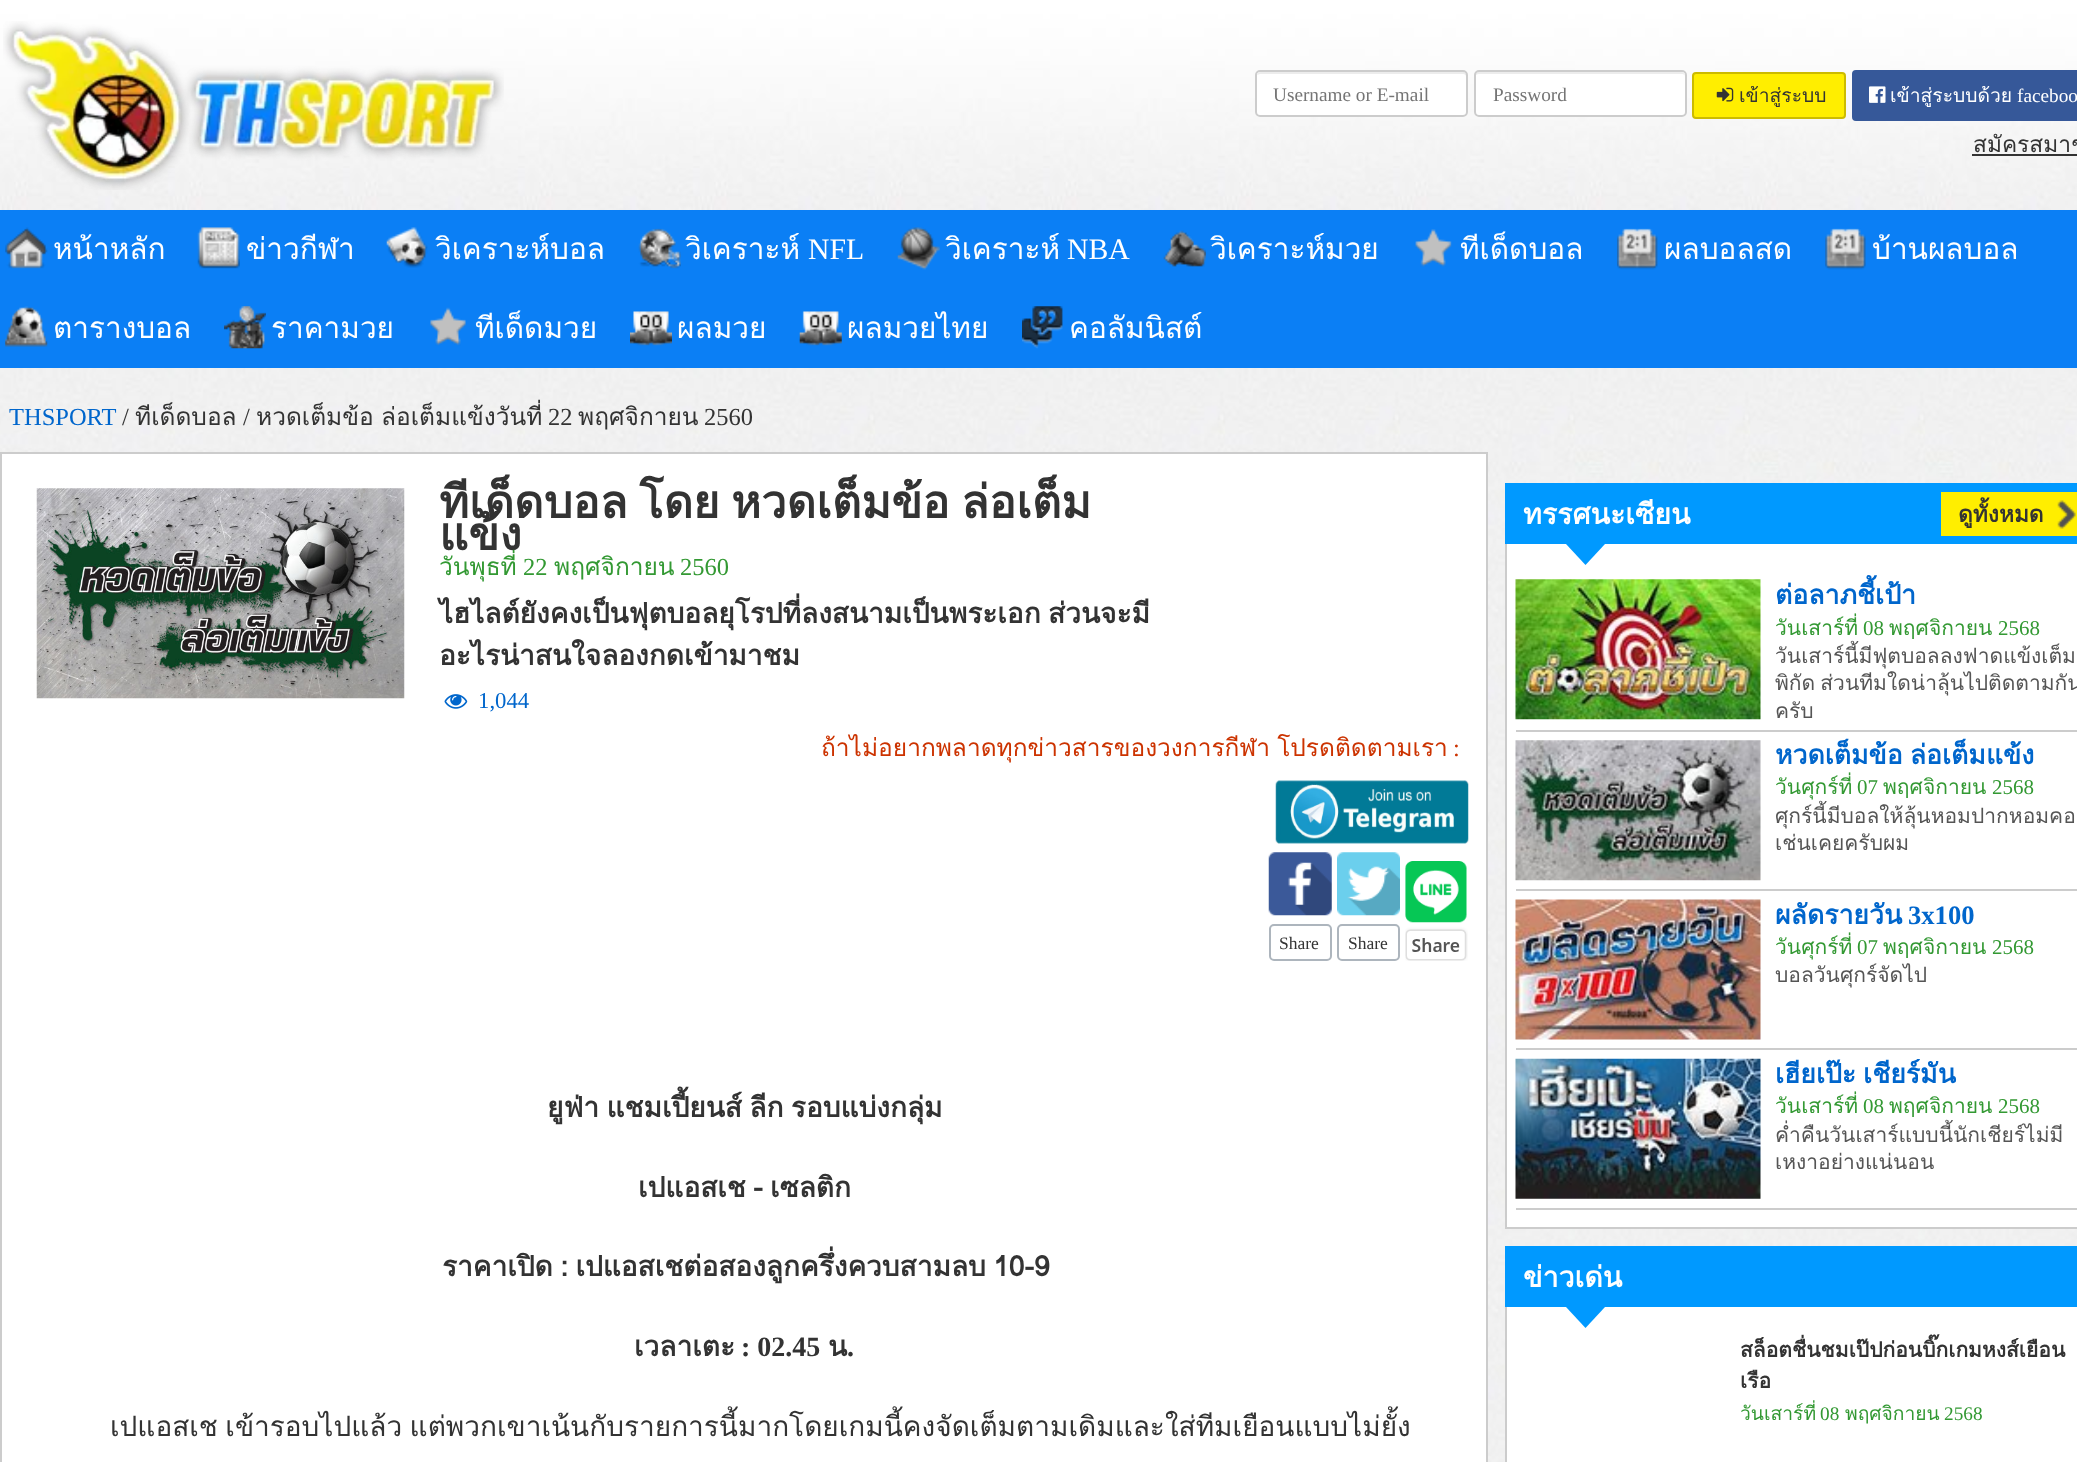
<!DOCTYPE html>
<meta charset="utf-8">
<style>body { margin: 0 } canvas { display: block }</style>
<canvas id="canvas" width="2077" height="1462"></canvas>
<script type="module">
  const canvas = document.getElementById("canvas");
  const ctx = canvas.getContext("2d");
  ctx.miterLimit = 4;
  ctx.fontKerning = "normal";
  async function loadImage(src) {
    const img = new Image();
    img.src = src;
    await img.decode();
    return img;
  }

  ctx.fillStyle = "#ffffff";
  ctx.fillRect(0, 0, 2077, 1462);
  ctx.drawImage(await loadImage("img1.png"), 0, 368, 2077, 1094);
  ctx.drawImage(await loadImage("img2.png"), 0, 0, 2077, 210);
  ctx.drawImage(await loadImage("img3.png"), 3, 21, 501, 169);
  ctx.beginPath();
  ctx.roundRect(1255, 70, 213, 47, 5);
  ctx.fill();
  ctx.fillStyle = "#ececec";
  ctx.beginPath();
  ctx.moveTo(1260, 74);
  ctx.lineTo(1463, 74);
  ctx.bezierCurveTo(1465, 74, 1466, 75, 1466, 77);
  ctx.lineTo(1466, 115);
  ctx.bezierCurveTo(1467, 114, 1467, 113, 1467, 112);
  ctx.lineTo(1467, 76);
  ctx.bezierCurveTo(1467, 74, 1465, 72, 1463, 72);
  ctx.lineTo(1261, 72);
  ctx.bezierCurveTo(1259, 72, 1258, 73, 1257, 75);
  ctx.closePath();
  ctx.fill();
  ctx.beginPath();
  ctx.roundRect(1256, 71, 211, 45, 4);
  ctx.strokeStyle = "#cccccc";
  ctx.lineWidth = 2;
  ctx.stroke();
  ctx.font = "19.25px Liberation Serif";
  ctx.fillStyle = "#757575";
  ctx.fillText("Username or E-mail", 1273, 101);
  ctx.fillStyle = "#ffffff";
  ctx.beginPath();
  ctx.roundRect(1474, 70, 213, 47, 5);
  ctx.fill();
  ctx.fillStyle = "#ececec";
  ctx.beginPath();
  ctx.moveTo(1479, 74);
  ctx.lineTo(1682, 74);
  ctx.bezierCurveTo(1684, 74, 1685, 75, 1685, 77);
  ctx.lineTo(1685, 76);
  ctx.bezierCurveTo(1685, 74, 1683, 72, 1681, 72);
  ctx.lineTo(1479, 72);
  ctx.bezierCurveTo(1477, 72, 1475, 74, 1475, 76);
  ctx.lineTo(1475, 77);
  ctx.bezierCurveTo(1475, 75, 1477, 74, 1479, 74);
  ctx.closePath();
  ctx.fill();
  ctx.beginPath();
  ctx.roundRect(1475, 71, 211, 45, 4);
  ctx.stroke();
  ctx.fillStyle = "#757575";
  ctx.fillText("Password", 1493, 101);
  ctx.fillStyle = "#ffee00";
  ctx.beginPath();
  ctx.roundRect(1693, 73, 152, 45, 3);
  ctx.fill();
  ctx.strokeStyle = "#ccbb00";
  ctx.stroke();
  ctx.drawImage(await loadImage("img4.png"), 1716, 87, 18, 15);
  ctx.font = "19.25px Loma";
  ctx.fillStyle = "#333333";
  ctx.fillText("เข้าสู่ระบบ", 1739, 102);
  ctx.fillStyle = "#365899";
  ctx.beginPath();
  ctx.roundRect(1853, 71, 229, 49, 3);
  ctx.fill();
  ctx.strokeStyle = "#365899";
  ctx.stroke();
  ctx.drawImage(await loadImage("img5.png"), 1869, 86, 17, 17);
  ctx.fillStyle = "#ffffff";
  ctx.fillText("เข้าสู่ระบบด้วย", 1890, 102);
  ctx.font = "19.25px Liberation Serif";
  ctx.fillText("faceboo", 2017, 102);
  ctx.font = "22.75px Loma";
  ctx.fillStyle = "#333333";
  ctx.fillText("สมัครสมาช", 1973, 152);
  ctx.fillRect(1972, 154, 105, 2);
  ctx.fillStyle = "#0b7ff5";
  ctx.fillRect(0, 210, 2077, 158);
  ctx.drawImage(await loadImage("img6.png"), 5, 227, 43, 42);
  ctx.font = "29.75px Loma";
  ctx.fillStyle = "#ffffff";
  ctx.fillText("หน้าหลัก", 53, 259);
  ctx.drawImage(await loadImage("img7.png"), 197, 227, 43, 42);
  ctx.fillText("ข่าวกีฬา", 246, 259);
  ctx.drawImage(await loadImage("img8.png"), 386, 227, 42, 41);
  ctx.fillText("วิเคราะห์บอล", 435, 259);
  ctx.drawImage(await loadImage("img9.png"), 638, 228, 43, 41);
  ctx.fillText("วิเคราะห์", 685, 259);
  ctx.font = "29.75px Liberation Serif";
  ctx.fillText("NFL", 808, 259);
  ctx.drawImage(await loadImage("img10.png"), 897, 227, 43, 43);
  ctx.font = "29.75px Loma";
  ctx.fillText("วิเคราะห์", 945, 259);
  ctx.font = "29.75px Liberation Serif";
  ctx.fillText("NBA", 1067, 259);
  ctx.drawImage(await loadImage("img11.png"), 1163, 230, 43, 37);
  ctx.font = "29.75px Loma";
  ctx.fillText("วิเคราะห์มวย", 1210, 259);
  ctx.drawImage(await loadImage("img12.png"), 1415, 229, 37, 38);
  ctx.fillText("ทีเด็ดบอล", 1460, 259);
  ctx.drawImage(await loadImage("img13.png"), 1617, 228, 41, 42);
  ctx.fillText("ผลบอลสด", 1664, 259);
  ctx.drawImage(await loadImage("img14.png"), 1825, 228, 41, 42);
  ctx.fillText("บ้านผลบอล", 1872, 259);
  ctx.drawImage(await loadImage("img15.png"), 5, 306, 43, 41);
  ctx.fillText("ตารางบอล", 53, 338);
  ctx.drawImage(await loadImage("img16.png"), 224, 306, 42, 43);
  ctx.fillText("ราคามวย", 271, 338);
  ctx.drawImage(await loadImage("img17.png"), 430, 307, 36, 39);
  ctx.fillText("ทีเด็ดมวย", 475, 338);
  ctx.drawImage(await loadImage("img18.png"), 630, 311, 42, 35);
  ctx.fillText("ผลมวย", 677, 338);
  ctx.drawImage(await loadImage("img19.png"), 799, 311, 43, 35);
  ctx.fillText("ผลมวยไทย", 847, 338);
  ctx.drawImage(await loadImage("img20.png"), 1022, 306, 41, 43);
  ctx.fillText("คอลัมนิสต์", 1069, 338);
  ctx.font = "24.5px Liberation Serif";
  ctx.fillStyle = "#0066cc";
  ctx.fillText("THSPORT", 9, 425);
  ctx.fillStyle = "#333333";
  ctx.fillText("/", 122, 425);
  ctx.font = "24.5px Loma";
  ctx.fillText("ทีเด็ดบอล", 135, 425);
  ctx.wordSpacing = "-1px";
  ctx.fillText("หวดเต็มข้อ ล่อเต็มแข้งวันที่", 256, 425);
  ctx.wordSpacing = "0px";
  ctx.fillText("พฤศจิกายน", 578, 425);
  ctx.font = "24.5px Liberation Serif";
  ctx.fillText("/", 243, 425);
  ctx.fillText("22", 548, 425);
  ctx.fillText("2560", 704, 425);
  ctx.fillStyle = "#ffffff";
  ctx.beginPath();
  ctx.rect(1, 453, 1486, 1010);
  ctx.fill();
  ctx.strokeStyle = "#cccccc";
  ctx.stroke();
  ctx.drawImage(await loadImage("img21.png"), 36, 488, 369, 211);
  ctx.wordSpacing = "-4px";
  ctx.font = "bold 45.5px Loma";
  ctx.fillStyle = "#333333";
  ctx.fillText("ทีเด็ดบอล โดย หวดเต็มข้อ ล่อเต็ม", 439, 518);
  ctx.wordSpacing = "0px";
  ctx.fillText("แข้ง", 439, 550);
  ctx.font = "24.5px Loma";
  ctx.fillStyle = "#339933";
  ctx.fillText("วันพุธที่", 439, 575);
  ctx.font = "24.5px Liberation Serif";
  ctx.fillText("22", 523, 575);
  ctx.font = "24.5px Loma";
  ctx.fillText("พฤศจิกายน", 554, 575);
  ctx.font = "24.5px Liberation Serif";
  ctx.fillText("2560", 680, 575);
  ctx.wordSpacing = "-2px";
  ctx.font = "bold 28px Loma";
  ctx.fillStyle = "#333333";
  ctx.fillText("ไฮไลต์ยังคงเป็นฟุตบอลยุโรปที่ลงสนามเป็นพระเอก ส่วนจะมี", 439, 623);
  ctx.wordSpacing = "0px";
  ctx.fillText("อะไรน่าสนใจลองกดเข้ามาชม", 439, 665);
  ctx.drawImage(await loadImage("img22.png"), 444, 694, 24, 15);
  ctx.font = "22.75px Liberation Serif";
  ctx.fillStyle = "#0066cc";
  ctx.fillText("1,044", 478, 708);
  ctx.wordSpacing = "-1px";
  ctx.font = "24.5px Loma";
  ctx.fillStyle = "#cc3300";
  ctx.fillText("ถ้าไม่อยากพลาดทุกข่าวสารของวงการกีฬา โปรดติดตามเรา", 821, 756);
  ctx.wordSpacing = "0px";
  ctx.font = "24.5px Liberation Serif";
  ctx.fillText(":", 1453, 756);
  ctx.drawImage(await loadImage("img23.png"), 1275, 780, 194, 64);
  ctx.drawImage(await loadImage("img24.png"), 1268, 852, 64, 64);
  ctx.beginPath();
  ctx.roundRect(1270, 925, 61, 35, 4);
  ctx.strokeStyle = "#adb5bd";
  ctx.stroke();
  ctx.font = "17.5px Liberation Serif";
  ctx.fillStyle = "#333333";
  ctx.fillText("Share", 1279, 949);
  ctx.drawImage(await loadImage("img25.png"), 1337, 852, 63, 64);
  ctx.beginPath();
  ctx.roundRect(1338, 925, 61, 35, 4);
  ctx.stroke();
  ctx.fillText("Share", 1348, 949);
  ctx.drawImage(await loadImage("img26.png"), 1405, 861, 63, 100);
  ctx.wordSpacing = "-2px";
  ctx.font = "bold 28px Loma";
  ctx.fillText("ยูฟ่า แชมเปี้ยนส์ ลีก รอบแบ่งกลุ่ม", 547, 1117);
  ctx.fillText("เปแอสเช - เซลติก", 638, 1197);
  ctx.fillText("ราคาเปิด : เปแอสเชต่อสองลูกครึ่งควบสามลบ 10-9", 442, 1276);
  ctx.wordSpacing = "0px";
  ctx.fillText("เวลาเตะ", 634, 1356);
  ctx.font = "bold 28px Liberation Serif";
  ctx.fillText(": 02.45", 741, 1356);
  ctx.font = "bold 28px Loma";
  ctx.fillText("น", 828, 1356);
  ctx.font = "bold 28px Liberation Serif";
  ctx.fillText(".", 847, 1356);
  ctx.wordSpacing = "-2px";
  ctx.font = "28px Loma";
  ctx.fillText("เปแอสเช เข้ารอบไปแล้ว แต่พวกเขาเน้นกับรายการนี้มากโดยเกมนี้คงจัดเต็มตามเดิมและใส่ทีมเยือนแบบไม่ยั้ง", 110, 1436);
  ctx.fillStyle = "#0099ff";
  ctx.fillRect(1505, 483, 572, 61);
  ctx.wordSpacing = "0px";
  ctx.font = "bold 28.5px Loma";
  ctx.fillStyle = "#ffffff";
  ctx.fillText("ทรรศนะเซียน", 1523, 524);
  ctx.fillStyle = "#ffee00";
  ctx.fillRect(1941, 492, 136, 44);
  ctx.drawImage(await loadImage("img27.png"), 2057, 500, 19, 29);
  ctx.font = "bold 22.75px Loma";
  ctx.fillStyle = "#333333";
  ctx.fillText("ดูทั้งหมด", 1958, 522);
  ctx.fillStyle = "#ffffff";
  ctx.fillRect(1507, 544, 570, 683);
  ctx.fillStyle = "#0099ff";
  ctx.beginPath();
  ctx.moveTo(1566, 544);
  ctx.lineTo(1605, 544);
  ctx.lineTo(1585.5, 565);
  ctx.closePath();
  ctx.fill();
  ctx.fillStyle = "#cccccc";
  ctx.fillRect(1505, 1227, 572, 2);
  ctx.fillRect(1505, 544, 2, 685);
  ctx.fillRect(1516, 730, 561, 2);
  ctx.drawImage(await loadImage("img28.png"), 1515, 579, 246, 141);
  ctx.font = "bold 26.6px Loma";
  ctx.fillStyle = "#0066cc";
  ctx.fillText("ต่อลาภชี้เป้า", 1775, 604);
  ctx.font = "21px Loma";
  ctx.fillStyle = "#339933";
  ctx.fillText("วันเสาร์ที่", 1775, 635);
  ctx.font = "21px Liberation Serif";
  ctx.fillText("08", 1863, 635);
  ctx.font = "21px Loma";
  ctx.fillText("พฤศจิกายน", 1889, 635);
  ctx.font = "21px Liberation Serif";
  ctx.fillText("2568", 1998, 635);
  ctx.font = "21px Loma";
  ctx.fillStyle = "#555555";
  ctx.fillText("วันเสาร์นี้มีฟุตบอลลงฟาดแข้งเต็ม", 1775, 663);
  ctx.wordSpacing = "-2px";
  ctx.fillText("พิกัด ส่วนทีมใดน่าลุ้นไปติดตามกัน", 1775, 690);
  ctx.wordSpacing = "0px";
  ctx.fillText("ครับ", 1775, 718);
  ctx.fillStyle = "#cccccc";
  ctx.fillRect(1516, 889, 561, 2);
  ctx.drawImage(await loadImage("img29.png"), 1515, 740, 246, 141);
  ctx.wordSpacing = "-2px";
  ctx.font = "bold 26.6px Loma";
  ctx.fillStyle = "#0066cc";
  ctx.fillText("หวดเต็มข้อ ล่อเต็มแข้ง", 1775, 764);
  ctx.wordSpacing = "0px";
  ctx.font = "21px Loma";
  ctx.fillStyle = "#339933";
  ctx.fillText("วันศุกร์ที่", 1775, 794);
  ctx.font = "21px Liberation Serif";
  ctx.fillText("07", 1857, 794);
  ctx.font = "21px Loma";
  ctx.fillText("พฤศจิกายน", 1883, 794);
  ctx.font = "21px Liberation Serif";
  ctx.fillText("2568", 1992, 794);
  ctx.font = "21px Loma";
  ctx.fillStyle = "#555555";
  ctx.fillText("ศุกร์นี้มีบอลให้ลุ้นหอมปากหอมคอ", 1775, 823);
  ctx.fillText("เช่นเคยครับผม", 1775, 850);
  ctx.fillStyle = "#cccccc";
  ctx.fillRect(1516, 1048, 561, 2);
  ctx.drawImage(await loadImage("img30.png"), 1515, 899, 246, 141);
  ctx.font = "bold 26.6px Loma";
  ctx.fillStyle = "#0066cc";
  ctx.fillText("ผลัดรายวัน", 1775, 924);
  ctx.font = "bold 26.6px Liberation Serif";
  ctx.fillText("3x100", 1908, 924);
  ctx.font = "21px Loma";
  ctx.fillStyle = "#339933";
  ctx.fillText("วันศุกร์ที่", 1775, 954);
  ctx.font = "21px Liberation Serif";
  ctx.fillText("07", 1857, 954);
  ctx.font = "21px Loma";
  ctx.fillText("พฤศจิกายน", 1883, 954);
  ctx.font = "21px Liberation Serif";
  ctx.fillText("2568", 1992, 954);
  ctx.font = "21px Loma";
  ctx.fillStyle = "#555555";
  ctx.fillText("บอลวันศุกร์จัดไป", 1775, 982);
  ctx.fillStyle = "#cccccc";
  ctx.fillRect(1516, 1208, 561, 2);
  ctx.drawImage(await loadImage("img31.png"), 1515, 1058, 246, 141);
  ctx.wordSpacing = "-2px";
  ctx.font = "bold 26.6px Loma";
  ctx.fillStyle = "#0066cc";
  ctx.fillText("เฮียเป๊ะ เชียร์มัน", 1775, 1083);
  ctx.wordSpacing = "0px";
  ctx.font = "21px Loma";
  ctx.fillStyle = "#339933";
  ctx.fillText("วันเสาร์ที่", 1775, 1113);
  ctx.font = "21px Liberation Serif";
  ctx.fillText("08", 1863, 1113);
  ctx.font = "21px Loma";
  ctx.fillText("พฤศจิกายน", 1889, 1113);
  ctx.font = "21px Liberation Serif";
  ctx.fillText("2568", 1998, 1113);
  ctx.font = "21px Loma";
  ctx.fillStyle = "#555555";
  ctx.fillText("ค่ำคืนวันเสาร์แบบนี้นักเชียร์ไม่มี", 1775, 1142);
  ctx.fillText("เหงาอย่างแน่นอน", 1775, 1169);
  ctx.fillStyle = "#0099ff";
  ctx.fillRect(1505, 1246, 572, 61);
  ctx.font = "bold 28.5px Loma";
  ctx.fillStyle = "#ffffff";
  ctx.fillText("ข่าวเด่น", 1523, 1287);
  ctx.fillRect(1507, 1307, 570, 155);
  ctx.fillStyle = "#0099ff";
  ctx.beginPath();
  ctx.moveTo(1566, 1307);
  ctx.lineTo(1605, 1307);
  ctx.lineTo(1585.5, 1328);
  ctx.closePath();
  ctx.fill();
  ctx.fillStyle = "#cccccc";
  ctx.fillRect(1505, 1307, 2, 155);
  ctx.font = "bold 21px Loma";
  ctx.fillStyle = "#333333";
  ctx.fillText("สล็อตชื่นชมเป๊ปก่อนบิ๊กเกมหงส์เยือน", 1740, 1357);
  ctx.fillText("เรือ", 1740, 1388);
  ctx.font = "19.25px Loma";
  ctx.fillStyle = "#339933";
  ctx.fillText("วันเสาร์ที่", 1740, 1420);
  ctx.font = "19.25px Liberation Serif";
  ctx.fillText("08", 1820, 1420);
  ctx.font = "19.25px Loma";
  ctx.fillText("พฤศจิกายน", 1845, 1420);
  ctx.font = "19.25px Liberation Serif";
  ctx.fillText("2568", 1944, 1420);
</script>
